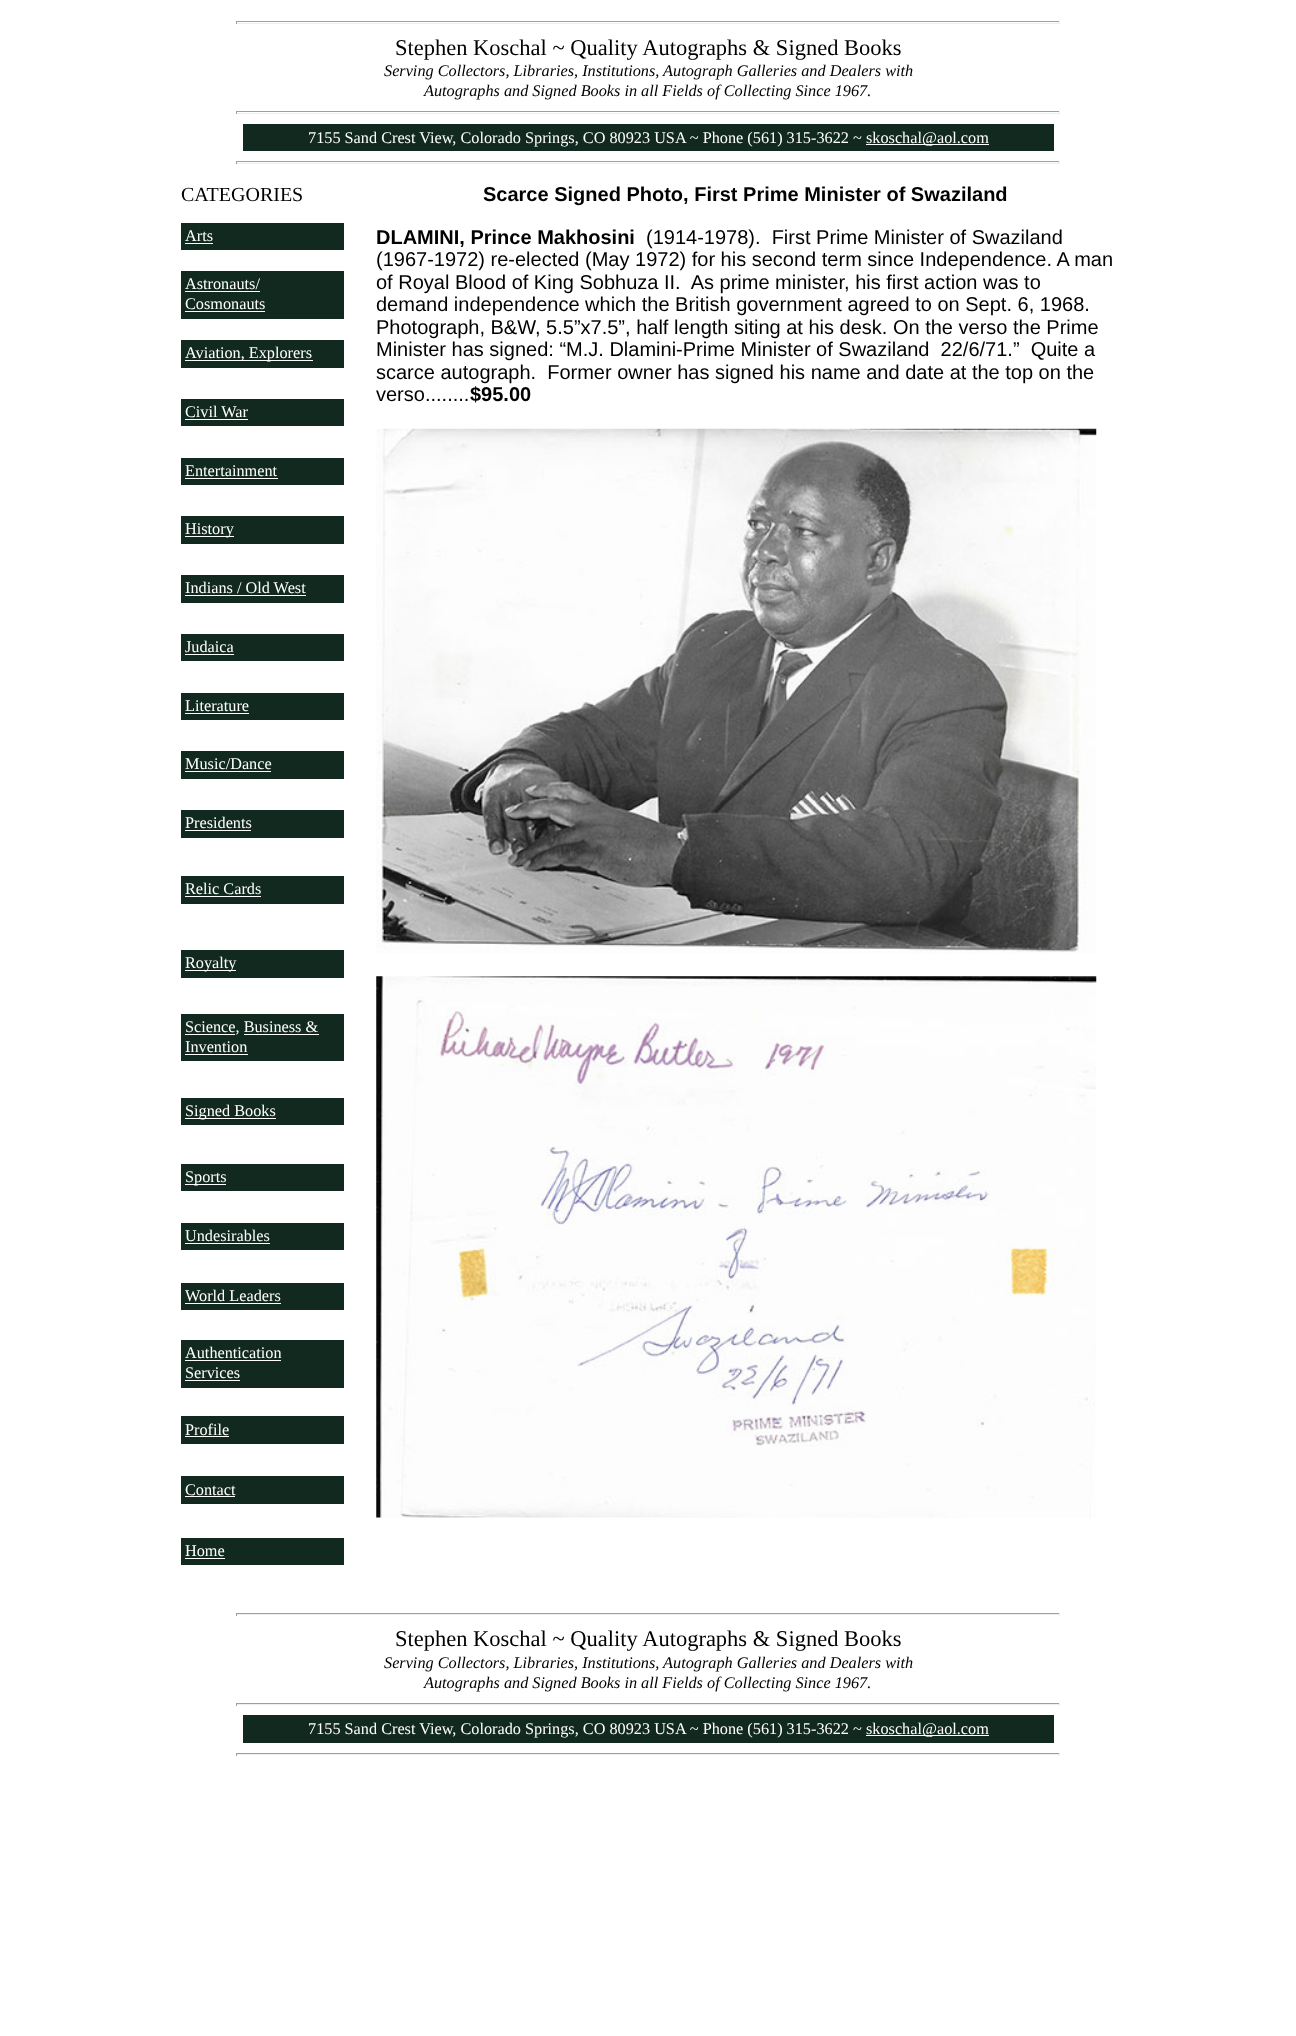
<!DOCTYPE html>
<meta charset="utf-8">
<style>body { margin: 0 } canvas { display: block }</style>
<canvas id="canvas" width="1296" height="2036"></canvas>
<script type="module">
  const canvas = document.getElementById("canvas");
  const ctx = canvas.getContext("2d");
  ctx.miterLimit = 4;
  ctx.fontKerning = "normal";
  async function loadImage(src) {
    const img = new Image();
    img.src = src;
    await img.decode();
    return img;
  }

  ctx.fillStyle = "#ffffff";
  ctx.fillRect(0, 0, 1296, 2036);
  ctx.fillStyle = "#9f9f9f";
  ctx.fillRect(236, 21, 824, 1);
  ctx.fillStyle = "#eeeeee";
  ctx.fillRect(1059, 21, 1, 3);
  ctx.fillRect(236, 23, 824, 1);
  ctx.fillStyle = "#9f9f9f";
  ctx.fillRect(236, 21, 1, 3);
  ctx.font = "22.5px Liberation Serif";
  ctx.fillStyle = "#000000";
  ctx.fillText("Stephen Koschal ~ Quality Autographs & Signed Books", 395, 55);
  ctx.font = "italic 16.25px Liberation Serif";
  ctx.fillText("Serving Collectors, Libraries, Institutions, Autograph Galleries and Dealers with", 384, 76);
  ctx.fillText("Autographs and Signed Books in all Fields of Collecting Since 1967.", 424, 96);
  ctx.fillStyle = "#9f9f9f";
  ctx.fillRect(236, 111, 824, 1);
  ctx.fillStyle = "#eeeeee";
  ctx.fillRect(1059, 111, 1, 3);
  ctx.fillRect(236, 113, 824, 1);
  ctx.fillStyle = "#9f9f9f";
  ctx.fillRect(236, 111, 1, 3);
  ctx.fillStyle = "#122920";
  ctx.fillRect(243, 124, 811, 27);
  ctx.font = "16.25px Liberation Serif";
  ctx.fillStyle = "#ffffff";
  ctx.fillText("7155 Sand Crest View, Colorado Springs, CO 80923 USA ~ Phone (561) 315-3622 ~", 308, 143);
  ctx.fillRect(866, 144, 123, 1);
  ctx.fillText("skoschal@aol.com", 866, 143);
  ctx.fillStyle = "#9f9f9f";
  ctx.fillRect(236, 161, 824, 1);
  ctx.fillStyle = "#eeeeee";
  ctx.fillRect(1059, 161, 1, 3);
  ctx.fillRect(236, 163, 824, 1);
  ctx.fillStyle = "#9f9f9f";
  ctx.fillRect(236, 161, 1, 3);
  ctx.font = "20px Liberation Serif";
  ctx.fillStyle = "#000000";
  ctx.fillText("CATEGORIES", 181, 201);
  ctx.fillStyle = "#122920";
  ctx.fillRect(181, 223, 163, 27);
  ctx.font = "16.25px Liberation Serif";
  ctx.fillStyle = "#ffffff";
  ctx.fillText("Arts", 185, 241);
  ctx.fillRect(185, 243, 28, 1);
  ctx.fillStyle = "#122920";
  ctx.fillRect(181, 271, 163, 48);
  ctx.fillStyle = "#ffffff";
  ctx.fillText("Astronauts/", 185, 289);
  ctx.fillRect(185, 291, 75, 1);
  ctx.fillText("Cosmonauts", 185, 309);
  ctx.fillRect(185, 311, 80, 1);
  ctx.fillStyle = "#122920";
  ctx.fillRect(181, 340, 163, 28);
  ctx.fillStyle = "#ffffff";
  ctx.fillRect(185, 360, 128, 1);
  ctx.fillText("Aviation, Explorers", 185, 358);
  ctx.fillStyle = "#122920";
  ctx.fillRect(181, 399, 163, 27);
  ctx.fillStyle = "#ffffff";
  ctx.fillText("Civil War", 185, 417);
  ctx.fillRect(185, 419, 63, 1);
  ctx.fillStyle = "#122920";
  ctx.fillRect(181, 458, 163, 27);
  ctx.fillStyle = "#ffffff";
  ctx.fillText("Entertainment", 185, 476);
  ctx.fillRect(185, 478, 93, 1);
  ctx.fillStyle = "#122920";
  ctx.fillRect(181, 516, 163, 28);
  ctx.fillStyle = "#ffffff";
  ctx.fillRect(185, 536, 49, 1);
  ctx.fillText("History", 185, 534);
  ctx.fillStyle = "#122920";
  ctx.fillRect(181, 575, 163, 28);
  ctx.fillStyle = "#ffffff";
  ctx.fillText("Indians / Old West", 185, 593);
  ctx.fillRect(185, 595, 121, 1);
  ctx.fillStyle = "#122920";
  ctx.fillRect(181, 634, 163, 27);
  ctx.fillStyle = "#ffffff";
  ctx.fillText("Judaica", 185, 652);
  ctx.fillRect(185, 654, 49, 1);
  ctx.fillStyle = "#122920";
  ctx.fillRect(181, 693, 163, 27);
  ctx.fillStyle = "#ffffff";
  ctx.fillText("Literature", 185, 711);
  ctx.fillRect(185, 713, 64, 1);
  ctx.fillStyle = "#122920";
  ctx.fillRect(181, 751, 163, 28);
  ctx.fillStyle = "#ffffff";
  ctx.fillText("Music/Dance", 185, 769);
  ctx.fillRect(185, 771, 86, 1);
  ctx.fillStyle = "#122920";
  ctx.fillRect(181, 810, 163, 28);
  ctx.fillStyle = "#ffffff";
  ctx.fillText("Presidents", 185, 828);
  ctx.fillRect(185, 830, 66, 1);
  ctx.fillStyle = "#122920";
  ctx.fillRect(181, 876, 163, 28);
  ctx.fillStyle = "#ffffff";
  ctx.fillText("Relic Cards", 185, 894);
  ctx.fillRect(185, 896, 76, 1);
  ctx.fillStyle = "#122920";
  ctx.fillRect(181, 950, 163, 28);
  ctx.fillStyle = "#ffffff";
  ctx.fillRect(185, 970, 51, 1);
  ctx.fillText("Royalty", 185, 968);
  ctx.fillStyle = "#122920";
  ctx.fillRect(181, 1014, 163, 47);
  ctx.fillStyle = "#ffffff";
  ctx.fillRect(185, 1034, 50, 1);
  ctx.fillText("Science, Business &", 185, 1032);
  ctx.fillText("Invention", 185, 1052);
  ctx.fillRect(244, 1034, 75, 1);
  ctx.fillRect(185, 1054, 63, 1);
  ctx.fillStyle = "#122920";
  ctx.fillRect(181, 1098, 163, 27);
  ctx.fillStyle = "#ffffff";
  ctx.fillRect(185, 1118, 91, 1);
  ctx.fillText("Signed Books", 185, 1116);
  ctx.fillStyle = "#122920";
  ctx.fillRect(181, 1164, 163, 27);
  ctx.fillStyle = "#ffffff";
  ctx.fillRect(185, 1184, 41, 1);
  ctx.fillText("Sports", 185, 1182);
  ctx.fillStyle = "#122920";
  ctx.fillRect(181, 1223, 163, 27);
  ctx.fillStyle = "#ffffff";
  ctx.fillText("Undesirables", 185, 1241);
  ctx.fillRect(185, 1243, 85, 1);
  ctx.fillStyle = "#122920";
  ctx.fillRect(181, 1283, 163, 27);
  ctx.fillStyle = "#ffffff";
  ctx.fillText("World Leaders", 185, 1301);
  ctx.fillRect(185, 1303, 96, 1);
  ctx.fillStyle = "#122920";
  ctx.fillRect(181, 1340, 163, 48);
  ctx.fillStyle = "#ffffff";
  ctx.fillText("Authentication", 185, 1358);
  ctx.fillRect(185, 1360, 96, 1);
  ctx.fillText("Services", 185, 1378);
  ctx.fillRect(185, 1380, 55, 1);
  ctx.fillStyle = "#122920";
  ctx.fillRect(181, 1416, 163, 28);
  ctx.fillStyle = "#ffffff";
  ctx.fillText("Profile", 185, 1435);
  ctx.fillRect(185, 1436, 44, 1);
  ctx.fillStyle = "#122920";
  ctx.fillRect(181, 1476, 163, 28);
  ctx.fillStyle = "#ffffff";
  ctx.fillText("Contact", 185, 1495);
  ctx.fillRect(185, 1496, 50, 1);
  ctx.fillStyle = "#122920";
  ctx.fillRect(181, 1538, 163, 27);
  ctx.fillStyle = "#ffffff";
  ctx.fillText("Home", 185, 1556);
  ctx.fillRect(185, 1558, 40, 1);
  ctx.font = "bold 20px Liberation Sans";
  ctx.fillStyle = "#000000";
  ctx.fillText("Scarce Signed Photo, First Prime Minister of Swaziland", 483, 201);
  ctx.fillText("DLAMINI, Prince Makhosini", 376, 244);
  ctx.font = "20px Liberation Sans";
  ctx.fillText("(1914-1978).  First Prime Minister of Swaziland", 646, 244);
  ctx.fillText("(1967-1972) re-elected (May 1972) for his second term since Independence. A man", 376, 266);
  ctx.fillText("of Royal Blood of King Sobhuza II.  As prime minister, his first action was to", 376, 289);
  ctx.fillText("demand independence which the British government agreed to on Sept. 6, 1968.", 376, 311);
  ctx.fillText("Photograph, B&W, 5.5”x7.5”, half length siting at his desk. On the verso the Prime", 376, 334);
  ctx.fillText("Minister has signed: “M.J. Dlamini-Prime Minister of Swaziland  22/6/71.”  Quite a", 376, 356);
  ctx.fillText("scarce autograph.  Former owner has signed his name and date at the top on the", 376, 379);
  ctx.fillText("verso........", 376, 401);
  ctx.font = "bold 20px Liberation Sans";
  ctx.fillText("$95.00", 470, 401);
  ctx.drawImage(await loadImage("img1.png"), 376, 428, 721, 526);
  ctx.drawImage(await loadImage("img2.png"), 376, 976, 721, 542);
  ctx.fillStyle = "#9f9f9f";
  ctx.fillRect(236, 1613, 824, 1);
  ctx.fillStyle = "#eeeeee";
  ctx.fillRect(1059, 1613, 1, 3);
  ctx.fillRect(236, 1614, 824, 1);
  ctx.fillStyle = "#9f9f9f";
  ctx.fillRect(236, 1613, 1, 3);
  ctx.font = "22.5px Liberation Serif";
  ctx.fillStyle = "#000000";
  ctx.fillText("Stephen Koschal ~ Quality Autographs & Signed Books", 395, 1646);
  ctx.font = "italic 16.25px Liberation Serif";
  ctx.fillText("Serving Collectors, Libraries, Institutions, Autograph Galleries and Dealers with", 384, 1668);
  ctx.fillText("Autographs and Signed Books in all Fields of Collecting Since 1967.", 424, 1688);
  ctx.fillStyle = "#9f9f9f";
  ctx.fillRect(236, 1703, 824, 1);
  ctx.fillStyle = "#eeeeee";
  ctx.fillRect(1059, 1703, 1, 3);
  ctx.fillRect(236, 1704, 824, 1);
  ctx.fillStyle = "#9f9f9f";
  ctx.fillRect(236, 1703, 1, 3);
  ctx.fillStyle = "#122920";
  ctx.fillRect(243, 1715, 811, 28);
  ctx.font = "16.25px Liberation Serif";
  ctx.fillStyle = "#ffffff";
  ctx.fillText("7155 Sand Crest View, Colorado Springs, CO 80923 USA ~ Phone (561) 315-3622 ~", 308, 1734);
  ctx.fillRect(866, 1735, 123, 1);
  ctx.fillText("skoschal@aol.com", 866, 1734);
  ctx.fillStyle = "#9f9f9f";
  ctx.fillRect(236, 1753, 824, 1);
  ctx.fillStyle = "#eeeeee";
  ctx.fillRect(1059, 1753, 1, 3);
  ctx.fillRect(236, 1754, 824, 1);
  ctx.fillStyle = "#9f9f9f";
  ctx.fillRect(236, 1753, 1, 3);
</script>
